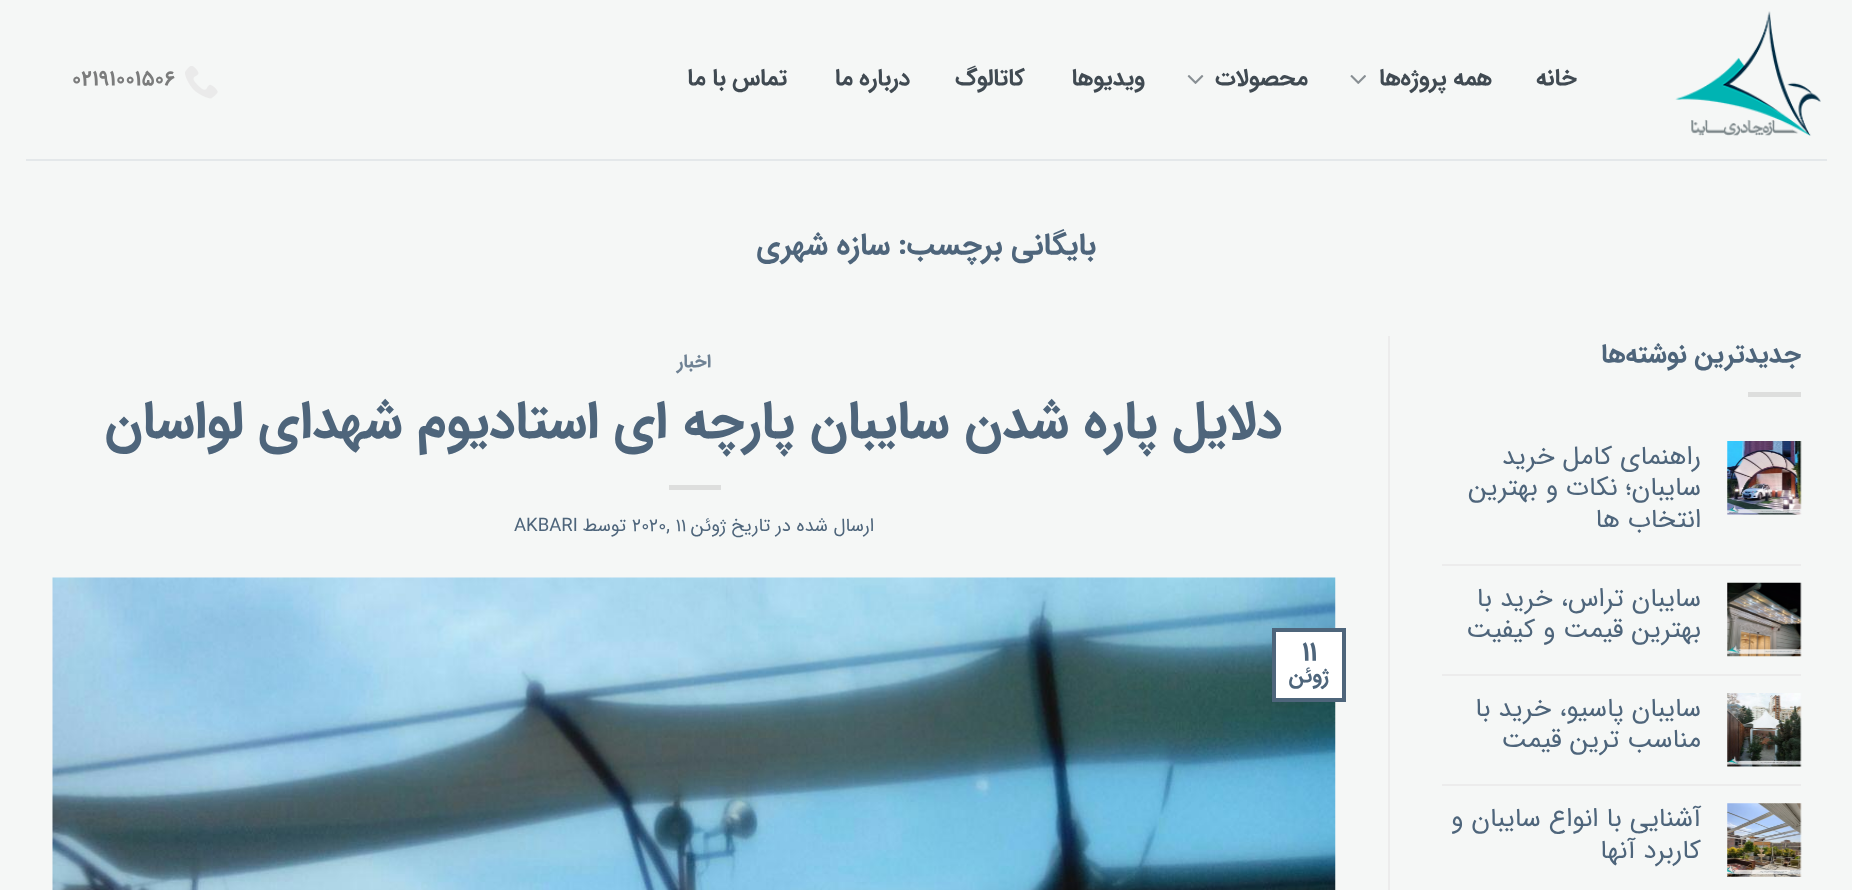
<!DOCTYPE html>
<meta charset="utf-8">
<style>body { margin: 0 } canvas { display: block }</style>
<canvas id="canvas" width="1852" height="890"></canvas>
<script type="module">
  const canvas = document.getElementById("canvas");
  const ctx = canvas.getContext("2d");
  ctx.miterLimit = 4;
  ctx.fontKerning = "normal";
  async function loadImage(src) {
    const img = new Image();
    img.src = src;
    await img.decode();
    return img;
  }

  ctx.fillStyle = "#f5f7f6";
  ctx.fillRect(0, 0, 1852, 890);
  ctx.drawImage(await loadImage("img1.png"), 1675, 11, 146, 125);
  ctx.letterSpacing = "0.5px";
  ctx.direction = "rtl";
  ctx.font = "bold 23.5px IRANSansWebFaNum";
  ctx.fillStyle = "#404a52";
  ctx.fillText("خانه", 1577, 85);
  ctx.wordSpacing = "-1px";
  ctx.fillText("همه پروژه‌ها", 1492, 85);
  ctx.drawImage(await loadImage("img2.png"), 1350, 75, 16, 9);
  ctx.wordSpacing = "0px";
  ctx.fillText("محصولات", 1308, 85);
  ctx.drawImage(await loadImage("img3.png"), 1187, 75, 17, 9);
  ctx.fillText("ویدیوها", 1145, 85);
  ctx.fillText("کاتالوگ", 1025, 85);
  ctx.wordSpacing = "-1px";
  ctx.fillText("درباره‌ ما", 910, 85);
  ctx.fillText("تماس با ما", 787, 85);
  ctx.drawImage(await loadImage("img4.png"), 185, 66, 33, 33);
  ctx.wordSpacing = "0px";
  ctx.direction = "ltr";
  ctx.font = "bold 21px IRANSansWebFaNum";
  ctx.fillStyle = "#7b7c7c";
  ctx.fillText("02191001506", 72, 85);
  ctx.fillStyle = "#e4e8ea";
  ctx.fillRect(26, 159, 1801, 2);
  ctx.letterSpacing = "0px";
  ctx.direction = "rtl";
  ctx.font = "bold 30.25px IRANSansWebFaNum";
  ctx.fillStyle = "#4e657b";
  ctx.fillText("بایگانی برچسب:", 1096, 254);
  ctx.fillText("سازه شهری", 890, 254);
  ctx.font = "bold 26.25px IRANSansWebFaNum";
  ctx.fillText("جدید‌ترین نوشته‌ها", 1801, 362);
  ctx.fillStyle = "#dddedd";
  ctx.fillRect(1748, 392, 53, 5);
  ctx.drawImage(await loadImage("img5.png"), 1727, 441, 75, 74);
  ctx.font = "26.25px IRANSansWebFaNum";
  ctx.fillStyle = "#4e657b";
  ctx.fillText("راهنمای کامل خرید", 1701, 464);
  ctx.fillText("سایبان؛ نکات و بهترین", 1701, 495);
  ctx.fillText("انتخاب ها", 1701, 527);
  ctx.fillStyle = "#ececec";
  ctx.fillRect(1442, 564, 359, 2);
  ctx.drawImage(await loadImage("img6.png"), 1727, 582, 75, 75);
  ctx.fillStyle = "#4e657b";
  ctx.fillText("سایبان تراس، خرید با", 1701, 606);
  ctx.fillText("بهترین قیمت و کیفیت", 1701, 637);
  ctx.fillStyle = "#ececec";
  ctx.fillRect(1442, 674, 359, 2);
  ctx.drawImage(await loadImage("img7.png"), 1727, 693, 75, 74);
  ctx.fillStyle = "#4e657b";
  ctx.fillText("سایبان پاسیو، خرید با", 1701, 716);
  ctx.fillText("مناسب ترین قیمت", 1701, 747);
  ctx.fillStyle = "#ececec";
  ctx.fillRect(1442, 784, 359, 2);
  ctx.drawImage(await loadImage("img8.png"), 1727, 803, 75, 74);
  ctx.fillStyle = "#4e657b";
  ctx.fillText("آشنایی با انواع سایبان و", 1701, 826);
  ctx.fillText("کاربرد آنها", 1701, 858);
  ctx.fillStyle = "#ececec";
  ctx.fillRect(1388, 336, 2, 554);
  ctx.font = "bold 18.5px IRANSansWebFaNum";
  ctx.fillStyle = "#6f8294";
  ctx.fillText("اخبار", 711, 367);
  ctx.font = "bold 52.5px IRANSansWebFaNum";
  ctx.fillStyle = "#4e657b";
  ctx.fillText("دلایل پاره شدن سایبان پارچه ای استادیوم شهدای لواسان", 1282, 437);
  ctx.fillStyle = "#dddedd";
  ctx.fillRect(669, 485, 52, 5);
  ctx.font = "18.5px IRANSansWebFaNum";
  ctx.fillStyle = "#4e657b";
  ctx.fillText("ارسال شده در تاریخ", 874, 531);
  ctx.fillText("ژوئن", 726, 531);
  ctx.direction = "ltr";
  ctx.fillText("2020, 11", 632, 531);
  ctx.direction = "rtl";
  ctx.fillText("توسط", 626, 531);
  ctx.direction = "ltr";
  ctx.fillText("AKBARI", 514, 531);
  ctx.drawImage(await loadImage("img9.png"), 52, 577, 1284, 313);
  ctx.fillStyle = "#ffffff";
  ctx.beginPath();
  ctx.rect(1274, 630, 70, 70);
  ctx.fill();
  ctx.strokeStyle = "#4e657b";
  ctx.lineWidth = 4;
  ctx.stroke();
  ctx.font = "bold 26.25px IRANSansWebFaNum";
  ctx.fillStyle = "#4e657b";
  ctx.fillText("11", 1302, 660);
  ctx.direction = "rtl";
  ctx.font = "bold 21px IRANSansWebFaNum";
  ctx.fillText("ژوئن", 1329, 682);
</script>
